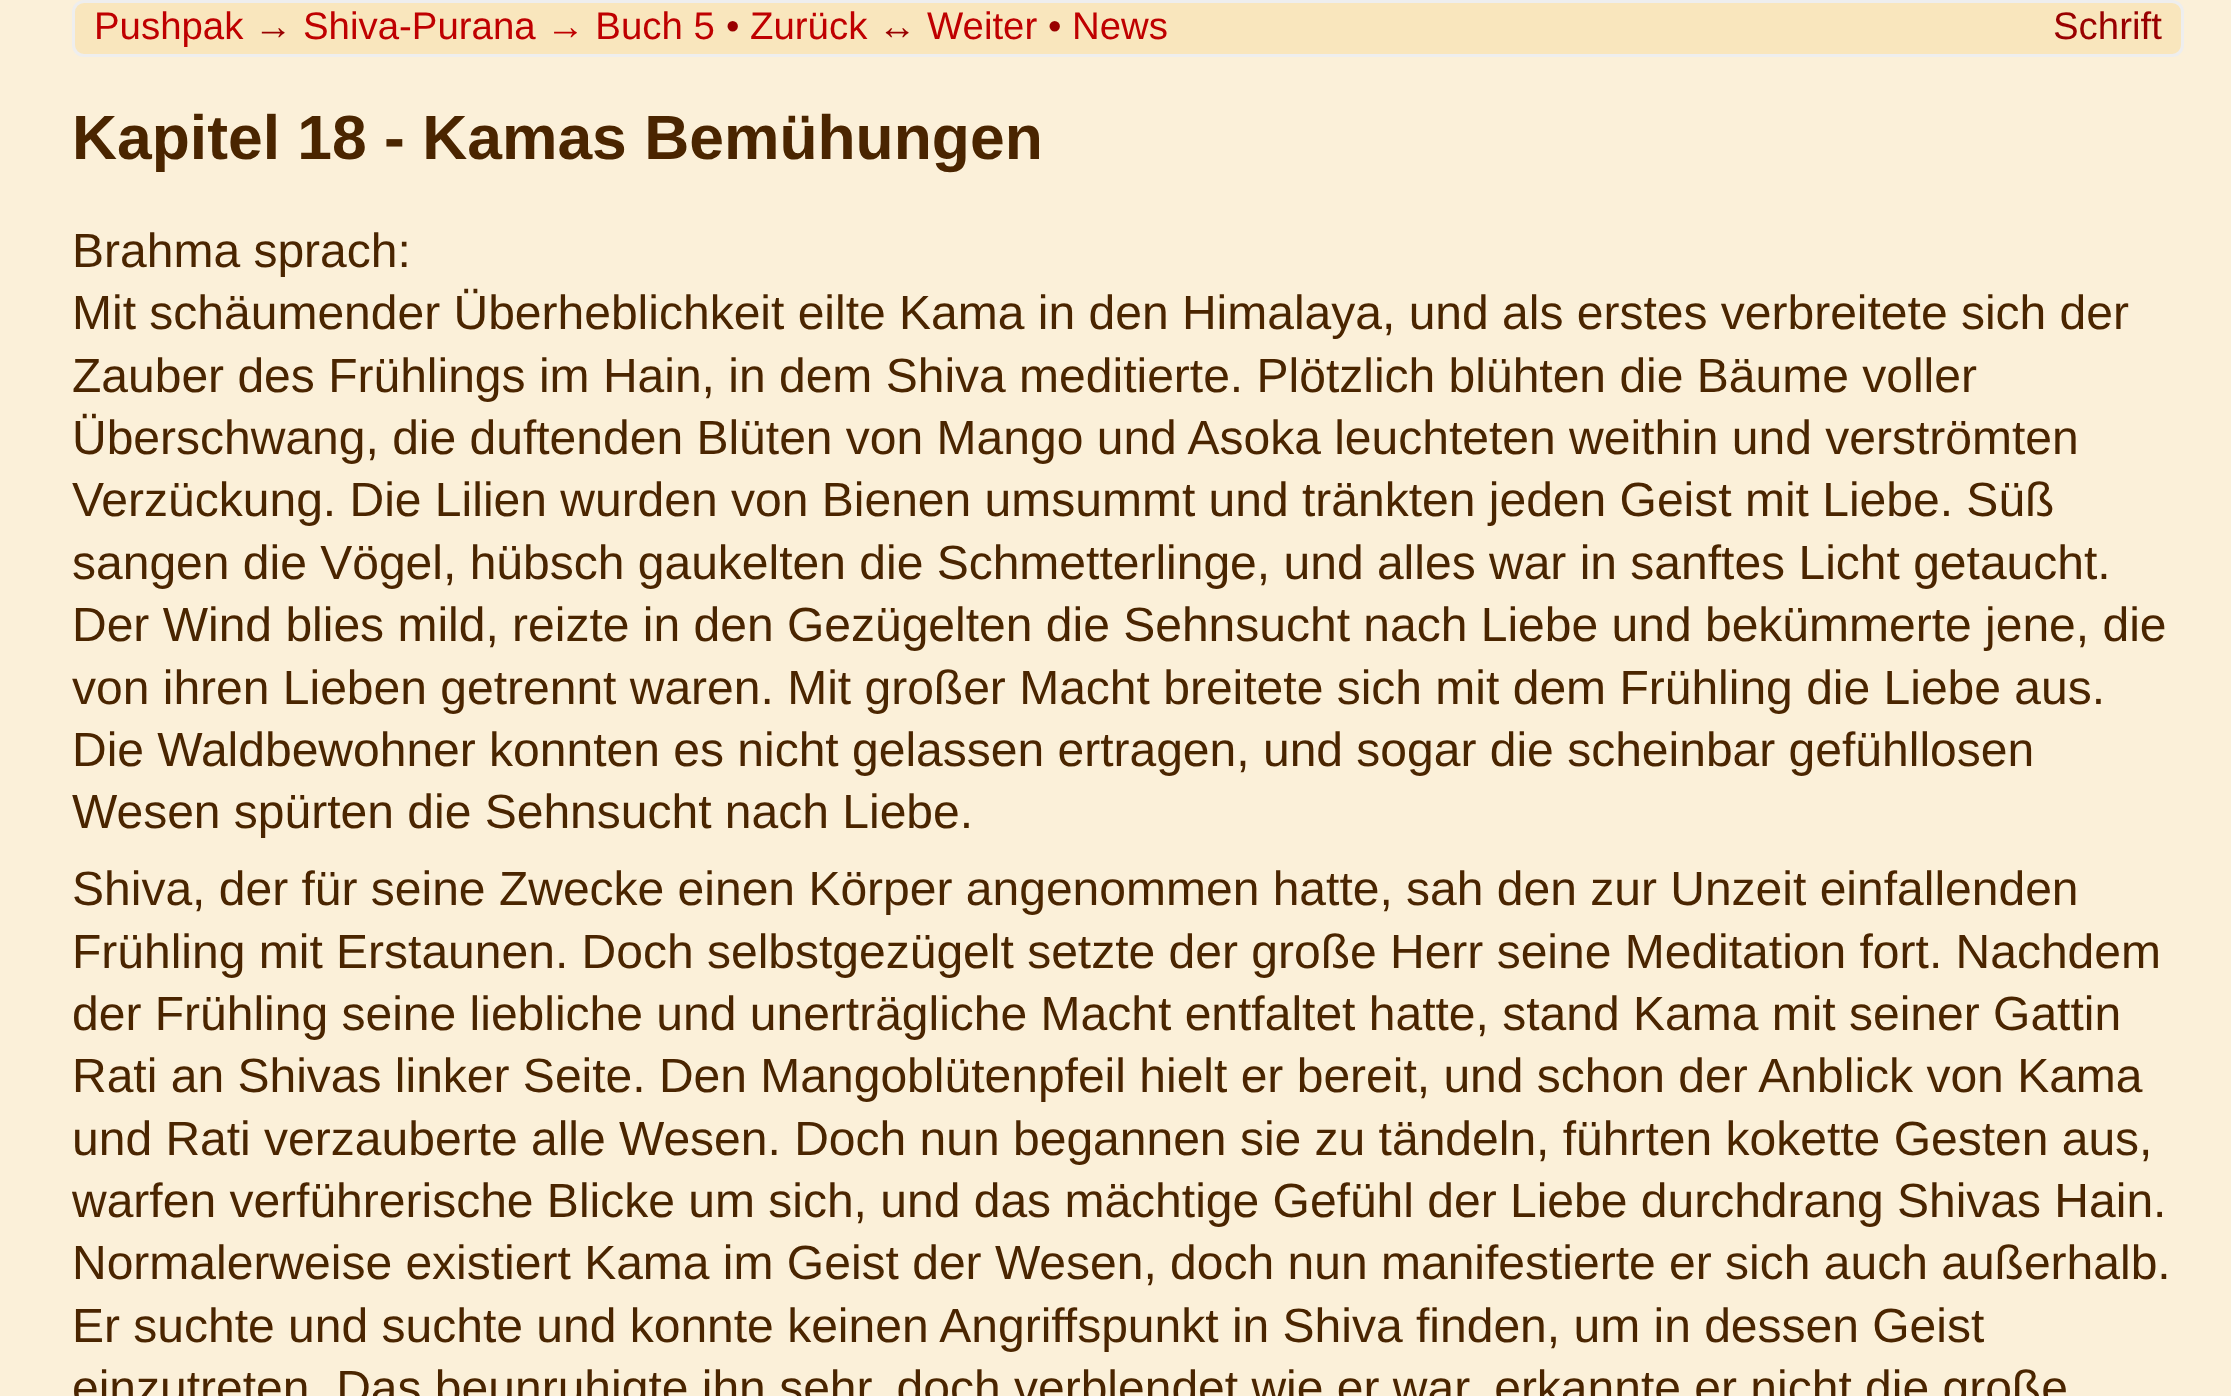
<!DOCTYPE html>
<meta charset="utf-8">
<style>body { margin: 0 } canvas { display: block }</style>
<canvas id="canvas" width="2231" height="1396"></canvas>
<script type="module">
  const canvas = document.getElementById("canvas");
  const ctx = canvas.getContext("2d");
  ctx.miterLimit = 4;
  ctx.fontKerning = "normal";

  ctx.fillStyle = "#fbf0d9";
  ctx.fillRect(0, 0, 2231, 1396);
  ctx.fillStyle = "#f9e6bd";
  ctx.beginPath();
  ctx.roundRect(73.5, 1.5, 2109, 54, 10.5);
  ctx.fill();
  ctx.strokeStyle = "#eeeeee";
  ctx.lineWidth = 3;
  ctx.stroke();
  ctx.font = "38.4px Liberation Sans";
  ctx.fillStyle = "#bf0000";
  ctx.fillText("Pushpak", 94, 39);
  ctx.fillText("Shiva-Purana → Buch 5", 303, 39);
  ctx.fillStyle = "#990000";
  ctx.fillText("•", 726, 39);
  ctx.fillStyle = "#bf0000";
  ctx.fillText("Zurück", 750, 39);
  ctx.fillText("Weiter", 927, 39);
  ctx.fillStyle = "#990000";
  ctx.fillText("•", 1048, 39);
  ctx.fillStyle = "#bf0000";
  ctx.fillText("News", 1072, 39);
  ctx.fillStyle = "#990000";
  ctx.fillText("Schrift", 2053, 39);
  ctx.fillText("→", 254, 39);
  ctx.fillText("↔", 878, 39);
  ctx.font = "bold 62.4px Liberation Sans";
  ctx.fillStyle = "#4a2500";
  ctx.fillText("Kapitel 18 - Kamas Bemühungen", 72, 159);
  ctx.font = "48px Liberation Sans";
  ctx.fillText("Brahma sprach:", 72, 267);
  ctx.fillText("Mit schäumender Überheblichkeit eilte Kama in den Himalaya, und als erstes verbreitete sich der", 72, 329);
  ctx.fillText("Zauber des Frühlings im Hain, in dem Shiva meditierte. Plötzlich blühten die Bäume voller", 72, 392);
  ctx.fillText("Überschwang, die duftenden Blüten von Mango und Asoka leuchteten weithin und verströmten", 72, 454);
  ctx.fillText("Verzückung. Die Lilien wurden von Bienen umsummt und tränkten jeden Geist mit Liebe. Süß", 72, 516);
  ctx.fillText("sangen die Vögel, hübsch gaukelten die Schmetterlinge, und alles war in sanftes Licht getaucht.", 72, 579);
  ctx.fillText("Der Wind blies mild, reizte in den Gezügelten die Sehnsucht nach Liebe und bekümmerte jene, die", 72, 641);
  ctx.fillText("von ihren Lieben getrennt waren. Mit großer Macht breitete sich mit dem Frühling die Liebe aus.", 72, 704);
  ctx.fillText("Die Waldbewohner konnten es nicht gelassen ertragen, und sogar die scheinbar gefühllosen", 72, 766);
  ctx.fillText("Wesen spürten die Sehnsucht nach Liebe.", 72, 828);
  ctx.fillText("Shiva, der für seine Zwecke einen Körper angenommen hatte, sah den zur Unzeit einfallenden", 72, 905);
  ctx.fillText("Frühling mit Erstaunen. Doch selbstgezügelt setzte der große Herr seine Meditation fort. Nachdem", 72, 968);
  ctx.fillText("der Frühling seine liebliche und unerträgliche Macht entfaltet hatte, stand Kama mit seiner Gattin", 72, 1030);
  ctx.fillText("Rati an Shivas linker Seite. Den Mangoblütenpfeil hielt er bereit, und schon der Anblick von Kama", 72, 1092);
  ctx.fillText("und Rati verzauberte alle Wesen. Doch nun begannen sie zu tändeln, führten kokette Gesten aus,", 72, 1155);
  ctx.fillText("warfen verführerische Blicke um sich, und das mächtige Gefühl der Liebe durchdrang Shivas Hain.", 72, 1217);
  ctx.fillText("Normalerweise existiert Kama im Geist der Wesen, doch nun manifestierte er sich auch außerhalb.", 72, 1279);
  ctx.fillText("Er suchte und suchte und konnte keinen Angriffspunkt in Shiva finden, um in dessen Geist", 72, 1342);
  ctx.fillText("einzutreten. Das beunruhigte ihn sehr, doch verblendet wie er war, erkannte er nicht die große", 72, 1404);
</script>
